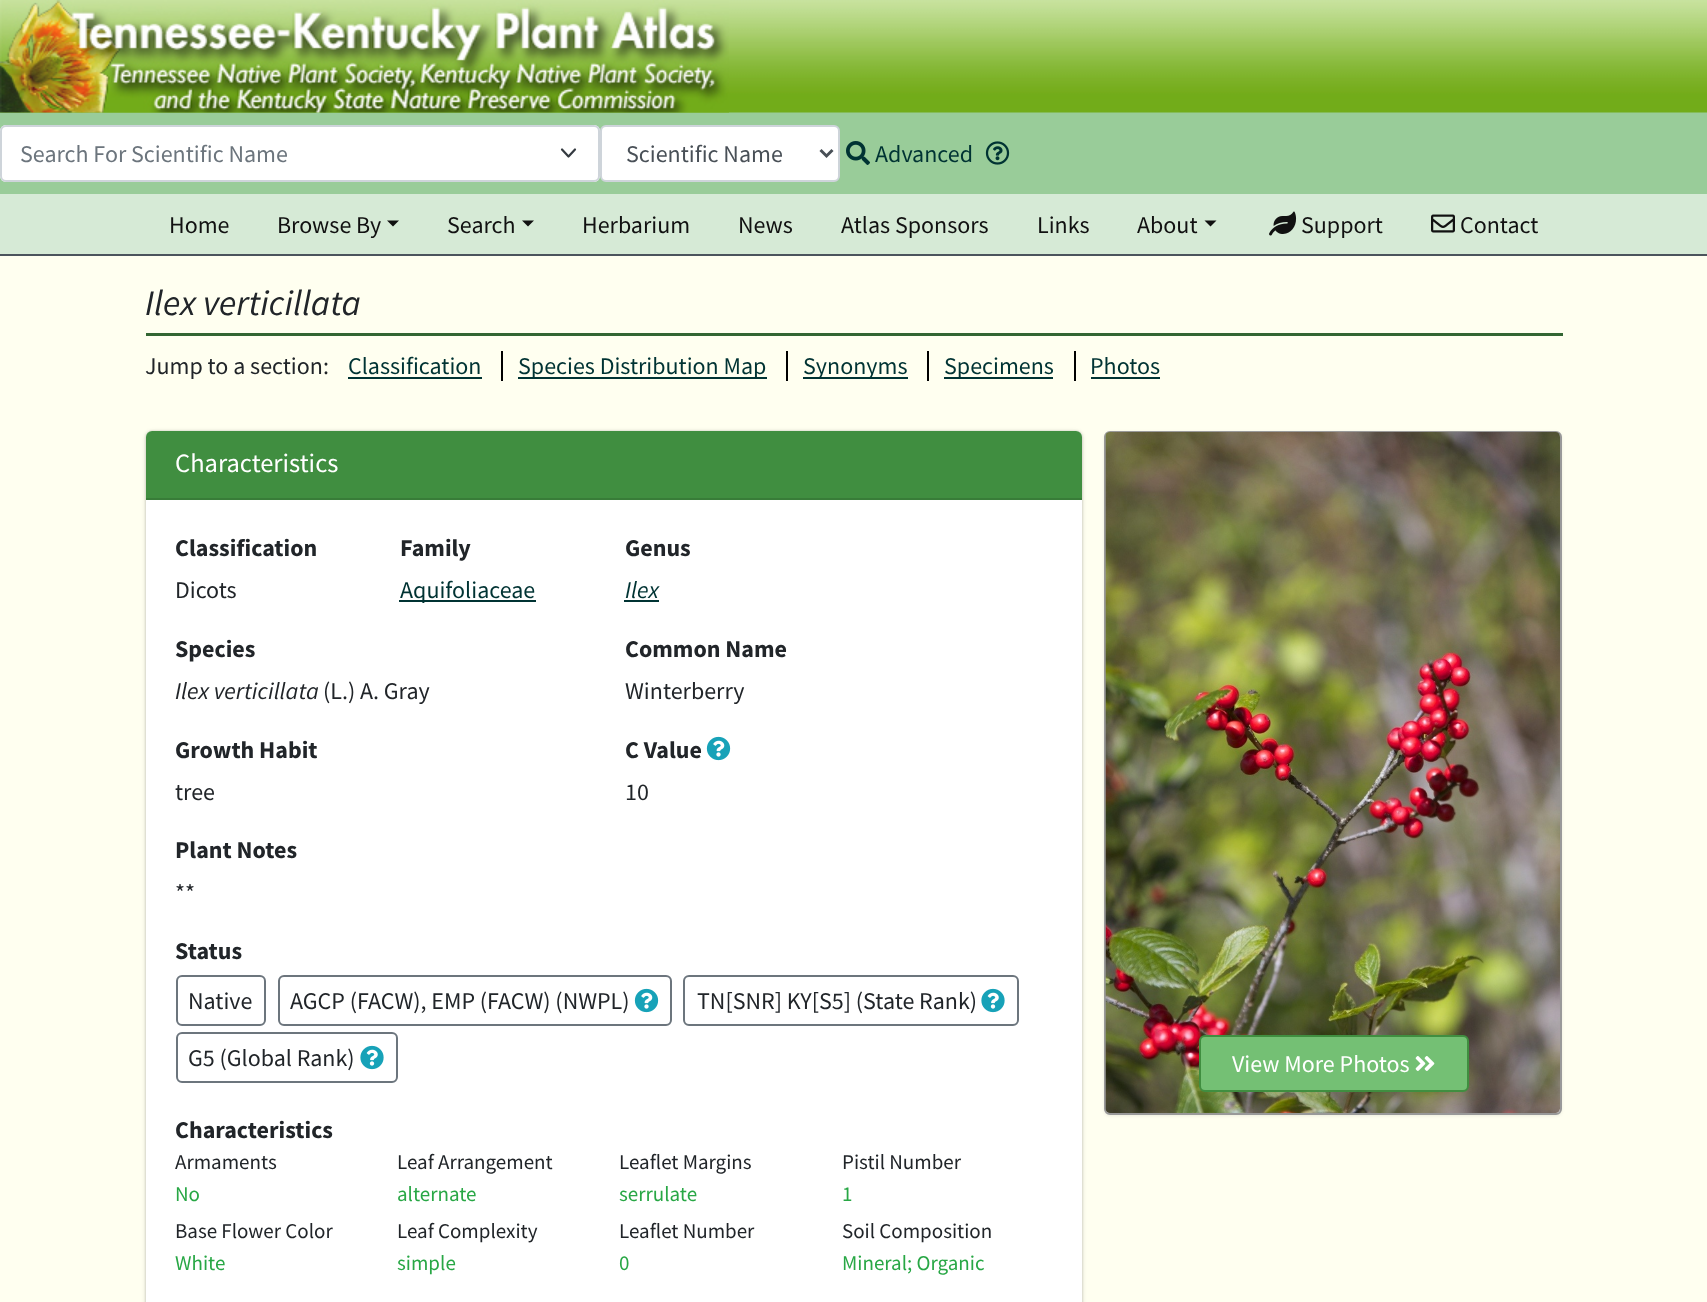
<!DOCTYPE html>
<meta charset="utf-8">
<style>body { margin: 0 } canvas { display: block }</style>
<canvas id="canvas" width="1707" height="1302"></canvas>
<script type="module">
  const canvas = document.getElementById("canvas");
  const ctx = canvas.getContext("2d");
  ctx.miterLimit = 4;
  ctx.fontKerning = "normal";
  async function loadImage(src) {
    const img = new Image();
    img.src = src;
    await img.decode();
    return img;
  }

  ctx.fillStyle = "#fffff0";
  ctx.fillRect(0, 0, 1707, 1302);
  ctx.fillStyle = "#99cc99";
  ctx.fillRect(0, 112, 1707, 82);
  ctx.drawImage(await loadImage("img1.png"), 0, 0, 1707, 113);
  ctx.drawImage(await loadImage("img2.png"), 0, 0, 729, 113);
  ctx.fillStyle = "#ffffff";
  ctx.beginPath();
  ctx.roundRect(0, 125, 600, 57, 6);
  ctx.fill();
  ctx.beginPath();
  ctx.moveTo(562, 149.5);
  ctx.lineTo(568.5, 156.5);
  ctx.lineTo(575, 149.5);
  ctx.strokeStyle = "#343a40";
  ctx.lineWidth = 2.2;
  ctx.lineCap = "round";
  ctx.lineJoin = "round";
  ctx.stroke();
  ctx.beginPath();
  ctx.roundRect(1, 126, 598, 55, 5);
  ctx.strokeStyle = "#ced4da";
  ctx.lineWidth = 2;
  ctx.lineJoin = "miter";
  ctx.stroke();
  ctx.font = "24px Source Sans Pro";
  ctx.fillStyle = "#6c757d";
  ctx.fillText("Search For Scientific Name", 20, 162);
  ctx.fillStyle = "#ffffff";
  ctx.beginPath();
  ctx.roundRect(601, 126, 238, 55, 5);
  ctx.fill();
  ctx.stroke();
  ctx.beginPath();
  ctx.moveTo(820.5, 150);
  ctx.lineTo(826.5, 156);
  ctx.lineTo(832.5, 150);
  ctx.strokeStyle = "#495057";
  ctx.lineWidth = 3;
  ctx.lineCap = "butt";
  ctx.stroke();
  ctx.fillStyle = "#495057";
  ctx.fillText("Scientific Name", 626, 162);
  ctx.drawImage(await loadImage("img3.png"), 846, 141, 24, 24);
  ctx.fillStyle = "#003333";
  ctx.fillText("Advanced", 875, 162);
  ctx.drawImage(await loadImage("img4.png"), 985, 141, 25, 24);
  ctx.fillStyle = "#d6ead6";
  ctx.fillRect(0, 194, 1707, 60);
  ctx.fillStyle = "#4b545c";
  ctx.fillRect(0, 254, 1707, 2);
  ctx.fillStyle = "#111111";
  ctx.fillText("Home", 169, 233);
  ctx.fillText("Browse By", 277, 233);
  ctx.beginPath();
  ctx.moveTo(387, 220.5);
  ctx.lineTo(399, 220.5);
  ctx.lineTo(393, 226.5);
  ctx.closePath();
  ctx.fill();
  ctx.fillText("Search", 447, 233);
  ctx.beginPath();
  ctx.moveTo(522, 220.5);
  ctx.lineTo(534, 220.5);
  ctx.lineTo(528, 226.5);
  ctx.closePath();
  ctx.fill();
  ctx.fillText("Herbarium", 582, 233);
  ctx.fillText("News", 738, 233);
  ctx.fillText("Atlas Sponsors", 841, 233);
  ctx.fillText("Links", 1037, 233);
  ctx.fillText("About", 1137, 233);
  ctx.beginPath();
  ctx.moveTo(1204.5, 220.5);
  ctx.lineTo(1216.5, 220.5);
  ctx.lineTo(1210.5, 226.5);
  ctx.closePath();
  ctx.fill();
  ctx.drawImage(await loadImage("img5.png"), 1269, 211, 28, 25);
  ctx.fillText("Support", 1301, 233);
  ctx.drawImage(await loadImage("img6.png"), 1431, 214, 24, 19);
  ctx.fillText("Contact", 1460, 233);
  ctx.fillStyle = "#336633";
  ctx.fillRect(146, 333, 1417, 3);
  ctx.font = "italic 36px Source Sans Pro";
  ctx.fillStyle = "#212529";
  ctx.fillText("Ilex verticillata", 145, 315);
  ctx.font = "24px Source Sans Pro";
  ctx.fillText("Jump to a section:", 145, 374);
  ctx.fillStyle = "#003333";
  ctx.fillText("Classification", 348, 374);
  ctx.fillRect(348, 377, 134, 2);
  ctx.fillRect(518, 377, 249, 2);
  ctx.fillText("Species Distribution Map", 518, 374);
  ctx.fillStyle = "#000000";
  ctx.fillRect(501, 351, 2, 30);
  ctx.fillStyle = "#003333";
  ctx.fillRect(803, 377, 105, 2);
  ctx.fillText("Synonyms", 803, 374);
  ctx.fillStyle = "#000000";
  ctx.fillRect(786, 351, 2, 30);
  ctx.fillStyle = "#003333";
  ctx.fillRect(944, 377, 109, 2);
  ctx.fillText("Specimens", 944, 374);
  ctx.fillStyle = "#000000";
  ctx.fillRect(927, 351, 2, 30);
  ctx.fillStyle = "#003333";
  ctx.fillText("Photos", 1090, 374);
  ctx.fillStyle = "#000000";
  ctx.fillRect(1074, 351, 2, 30);
  ctx.fillStyle = "#003333";
  ctx.fillRect(1091, 377, 69, 2);
  ctx.fillStyle = "rgba(0, 0, 0, 0.2)";
  ctx.filter = "blur(2px)";
  ctx.beginPath();
  ctx.roundRect(146, 432, 936, 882, 6);
  ctx.fill();
  ctx.filter = "none";
  ctx.fillStyle = "rgba(0, 0, 0, 0.12)";
  ctx.filter = "blur(1px)";
  ctx.beginPath();
  ctx.roundRect(146, 431, 936, 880, 6);
  ctx.fill();
  ctx.filter = "none";
  ctx.fillStyle = "#ffffff";
  ctx.beginPath();
  ctx.roundRect(146, 431, 936, 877, 6);
  ctx.fill();
  ctx.fillStyle = "#408e40";
  ctx.beginPath();
  ctx.roundRect(146, 431, 936, 69, [6, 6, 0, 0]);
  ctx.fill();
  ctx.fillStyle = "#387c38";
  ctx.fillRect(146, 498, 936, 2);
  ctx.font = "26.5px Source Sans Pro";
  ctx.fillStyle = "#ffffff";
  ctx.fillText("Characteristics", 175, 472);
  ctx.font = "bold 24px Source Sans Pro";
  ctx.fillStyle = "#212529";
  ctx.fillText("Classification", 175, 556);
  ctx.font = "24px Source Sans Pro";
  ctx.fillText("Dicots", 175, 598);
  ctx.font = "bold 24px Source Sans Pro";
  ctx.fillText("Family", 400, 556);
  ctx.fillStyle = "#003333";
  ctx.fillRect(399, 600, 137, 2);
  ctx.font = "24px Source Sans Pro";
  ctx.fillText("Aquifoliaceae", 400, 598);
  ctx.font = "bold 24px Source Sans Pro";
  ctx.fillStyle = "#212529";
  ctx.fillText("Genus", 625, 556);
  ctx.font = "italic 24px Source Sans Pro";
  ctx.fillStyle = "#003333";
  ctx.fillText("Ilex", 625, 598);
  ctx.fillRect(624, 600, 35, 2);
  ctx.font = "bold 24px Source Sans Pro";
  ctx.fillStyle = "#212529";
  ctx.fillText("Species", 175, 657);
  ctx.font = "italic 24px Source Sans Pro";
  ctx.fillText("Ilex verticillata", 175, 699);
  ctx.font = "24px Source Sans Pro";
  ctx.fillText("(L.) A. Gray", 323, 699);
  ctx.font = "bold 24px Source Sans Pro";
  ctx.fillText("Common Name", 625, 657);
  ctx.font = "24px Source Sans Pro";
  ctx.fillText("Winterberry", 625, 699);
  ctx.font = "bold 24px Source Sans Pro";
  ctx.fillText("Growth Habit", 175, 758);
  ctx.font = "24px Source Sans Pro";
  ctx.fillText("tree", 175, 800);
  ctx.font = "bold 24px Source Sans Pro";
  ctx.fillText("C Value", 625, 758);
  ctx.drawImage(await loadImage("img7.png"), 706, 736, 25, 25);
  ctx.font = "24px Source Sans Pro";
  ctx.fillText("10", 625, 800);
  ctx.font = "bold 24px Source Sans Pro";
  ctx.fillText("Plant Notes", 175, 858);
  ctx.font = "24px Source Sans Pro";
  ctx.fillText("**", 175, 901);
  ctx.font = "bold 24px Source Sans Pro";
  ctx.fillText("Status", 175, 959);
  ctx.beginPath();
  ctx.roundRect(177, 976, 88, 49, 5);
  ctx.strokeStyle = "#6c757d";
  ctx.lineWidth = 2;
  ctx.stroke();
  ctx.font = "24px Source Sans Pro";
  ctx.fillText("Native", 188, 1009);
  ctx.beginPath();
  ctx.roundRect(279, 976, 392, 49, 5);
  ctx.stroke();
  ctx.fillText("AGCP (FACW), EMP (FACW) (NWPL)", 290, 1009);
  ctx.drawImage(await loadImage("img7.png"), 634, 988, 25, 25);
  ctx.beginPath();
  ctx.roundRect(684, 976, 334, 49, 5);
  ctx.stroke();
  ctx.fillText("TN[SNR] KY[S5] (State Rank)", 697, 1009);
  ctx.drawImage(await loadImage("img8.png"), 981, 988, 24, 25);
  ctx.beginPath();
  ctx.roundRect(177, 1033, 220, 49, 5);
  ctx.stroke();
  ctx.fillText("G5 (Global Rank)", 188, 1066);
  ctx.drawImage(await loadImage("img8.png"), 360, 1045, 24, 25);
  ctx.font = "bold 24px Source Sans Pro";
  ctx.fillText("Characteristics", 175, 1138);
  ctx.font = "21px Source Sans Pro";
  ctx.fillText("Armaments", 175, 1169);
  ctx.fillStyle = "#28a745";
  ctx.fillText("No", 175, 1201);
  ctx.fillStyle = "#212529";
  ctx.fillText("Base Flower Color", 175, 1238);
  ctx.fillStyle = "#28a745";
  ctx.fillText("White", 175, 1270);
  ctx.fillStyle = "#212529";
  ctx.fillText("Leaf Arrangement", 397, 1169);
  ctx.fillStyle = "#28a745";
  ctx.fillText("alternate", 397, 1201);
  ctx.fillStyle = "#212529";
  ctx.fillText("Leaf Complexity", 397, 1238);
  ctx.fillStyle = "#28a745";
  ctx.fillText("simple", 397, 1270);
  ctx.fillStyle = "#212529";
  ctx.fillText("Leaflet Margins", 619, 1169);
  ctx.fillStyle = "#28a745";
  ctx.fillText("serrulate", 619, 1201);
  ctx.fillStyle = "#212529";
  ctx.fillText("Leaflet Number", 619, 1238);
  ctx.fillStyle = "#28a745";
  ctx.fillText("0", 619, 1270);
  ctx.fillStyle = "#212529";
  ctx.fillText("Pistil Number", 842, 1169);
  ctx.fillStyle = "#28a745";
  ctx.fillText("1", 842, 1201);
  ctx.fillStyle = "#212529";
  ctx.fillText("Soil Composition", 842, 1238);
  ctx.fillStyle = "#28a745";
  ctx.fillText("Mineral; Organic", 842, 1270);
  ctx.fillStyle = "rgba(0, 0, 0, 0.07)";
  ctx.filter = "blur(1.5px)";
  ctx.beginPath();
  ctx.roundRect(1104, 432, 458, 684, 6);
  ctx.fill();
  ctx.filter = "none";
  ctx.fillStyle = "#ffffff";
  ctx.beginPath();
  ctx.roundRect(1105, 432, 456, 682, 5);
  ctx.fill();
  ctx.strokeStyle = "#999999";
  ctx.stroke();
  ctx.drawImage(await loadImage("img9.png"), 1105, 432, 455, 681);
  ctx.fillStyle = "#74c074";
  ctx.beginPath();
  ctx.roundRect(1200, 1036, 268, 55, 5);
  ctx.fill();
  ctx.strokeStyle = "#408e40";
  ctx.stroke();
  ctx.font = "24px Source Sans Pro";
  ctx.fillStyle = "#ffffff";
  ctx.fillText("View More Photos", 1232, 1072);
  ctx.drawImage(await loadImage("img10.png"), 1415, 1056, 20, 15);
</script>
